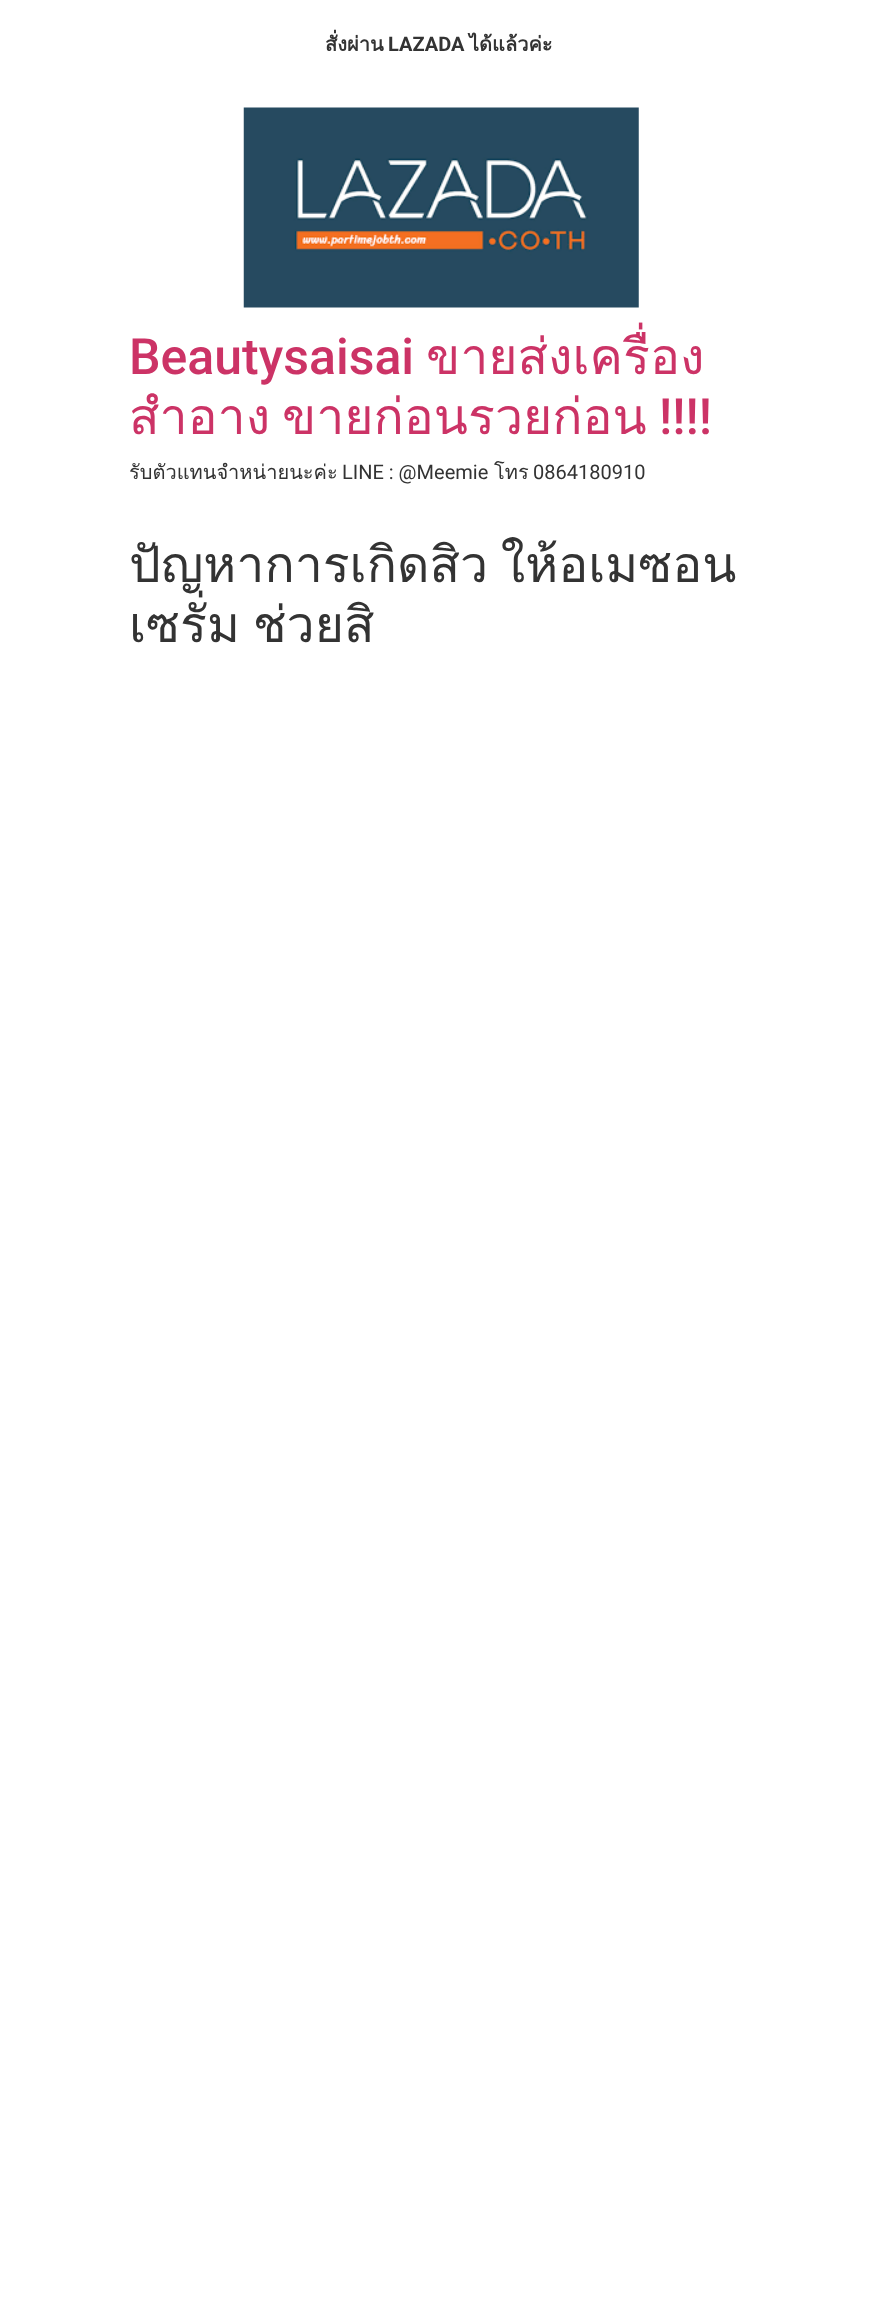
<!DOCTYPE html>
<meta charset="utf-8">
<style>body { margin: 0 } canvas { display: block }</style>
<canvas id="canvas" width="882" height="2309"></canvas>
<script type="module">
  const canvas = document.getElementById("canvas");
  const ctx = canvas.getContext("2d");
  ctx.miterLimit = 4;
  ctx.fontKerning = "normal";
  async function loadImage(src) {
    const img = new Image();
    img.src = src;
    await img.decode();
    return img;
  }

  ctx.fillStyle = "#ffffff";
  ctx.fillRect(0, 0, 882, 2309);
  ctx.font = "bold 20px Loma";
  ctx.fillStyle = "#333333";
  ctx.fillText("สั่งผ่าน", 325, 51);
  ctx.font = "bold 20px Roboto";
  ctx.fillText("LAZADA", 388, 51);
  ctx.font = "bold 20px Loma";
  ctx.fillText("ได้แล้วค่ะ", 469, 51);
  ctx.drawImage(await loadImage("img1.png"), 243, 107, 396, 201);
  ctx.font = "500 50px Roboto";
  ctx.fillStyle = "#cc3366";
  ctx.fillText("Beautysaisai", 129, 374);
  ctx.font = "50px Loma";
  ctx.fillText("ขายส่งเครื่อง", 426, 374);
  ctx.fillText("สำอาง", 129, 434);
  ctx.fillText("ขายก่อนรวยก่อน", 282, 434);
  ctx.font = "500 50px Roboto";
  ctx.fillText("!!!!", 659, 434);
  ctx.font = "20px Loma";
  ctx.fillStyle = "#333333";
  ctx.fillText("รับตัวแทนจำหน่ายนะค่ะ", 129, 479);
  ctx.font = "20px Roboto";
  ctx.fillText("LINE : @Meemie", 342, 479);
  ctx.font = "20px Loma";
  ctx.fillText("โทร", 494, 479);
  ctx.font = "20px Roboto";
  ctx.fillText("0864180910", 533, 479);
  ctx.wordSpacing = "-4px";
  ctx.font = "50px Loma";
  ctx.fillText("ปัญหาการเกิดสิว ให้อเมซอน", 129, 582);
  ctx.fillText("เซรั่ม ช่วยสิ", 129, 642);
</script>
